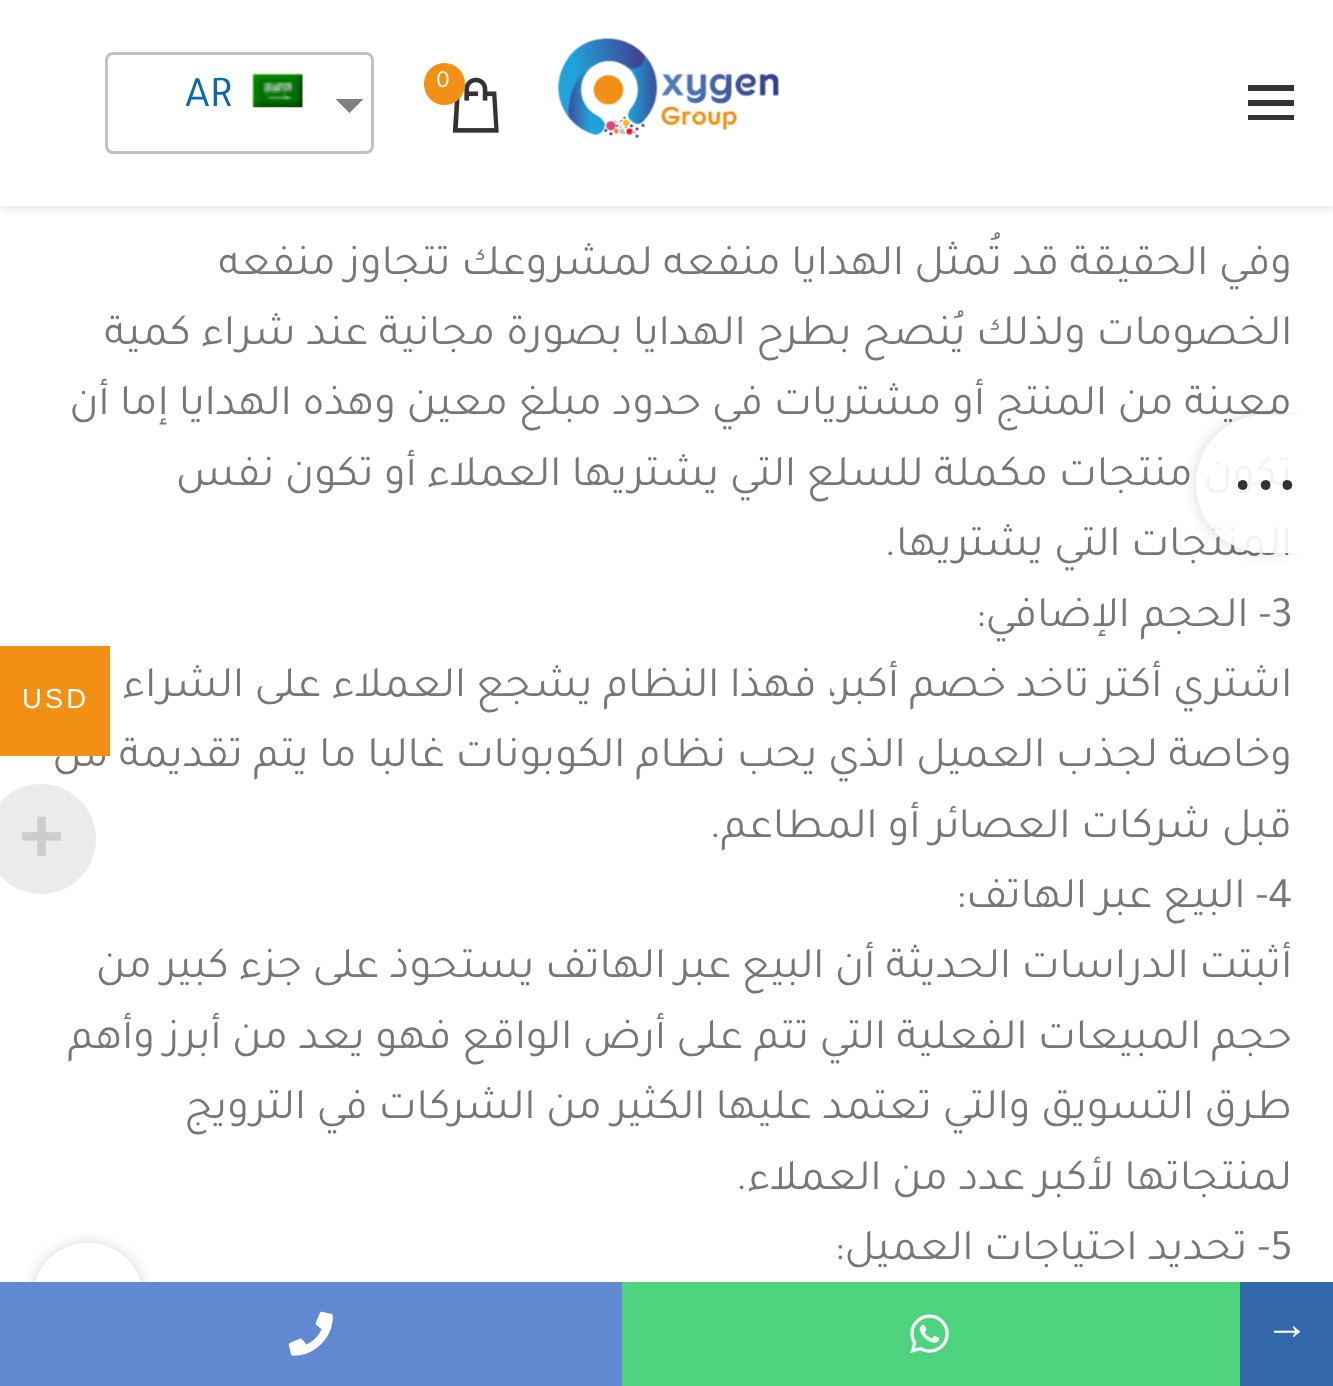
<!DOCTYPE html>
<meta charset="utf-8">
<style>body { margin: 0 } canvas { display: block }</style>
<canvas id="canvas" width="1333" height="1386"></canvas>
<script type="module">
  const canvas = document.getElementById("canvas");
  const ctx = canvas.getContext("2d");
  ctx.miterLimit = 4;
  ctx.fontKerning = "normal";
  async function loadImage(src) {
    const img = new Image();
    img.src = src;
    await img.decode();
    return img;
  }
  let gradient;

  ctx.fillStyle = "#ffffff";
  ctx.fillRect(0, 0, 1333, 1386);
  ctx.fillStyle = "rgba(0, 0, 0, 0.1)";
  ctx.filter = "blur(4px)";
  ctx.beginPath();
  ctx.rect(0, 3, 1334, 206);
  ctx.fill();
  ctx.filter = "none";
  ctx.fillStyle = "#ffffff";
  ctx.fillRect(0, 0, 1333, 206);
  ctx.fillStyle = "#333333";
  ctx.beginPath();
  ctx.moveTo(1248, 85);
  ctx.lineTo(1294, 85);
  ctx.lineTo(1294, 91);
  ctx.lineTo(1248, 91);
  ctx.closePath();
  ctx.moveTo(1248, 100);
  ctx.lineTo(1294, 100);
  ctx.lineTo(1294, 106);
  ctx.lineTo(1248, 106);
  ctx.closePath();
  ctx.moveTo(1248, 115);
  ctx.lineTo(1294, 115);
  ctx.lineTo(1294, 120);
  ctx.lineTo(1248, 120);
  ctx.closePath();
  ctx.fill();
  ctx.drawImage(await loadImage("img1.png"), 557, 37, 222, 101);
  ctx.drawImage(await loadImage("img2.png"), 452, 77, 47, 56);
  ctx.fillStyle = "#f28f15";
  ctx.beginPath();
  ctx.roundRect(424, 63, 41, 42, 20.5);
  ctx.fill();
  ctx.font = "25px Tajawal";
  ctx.fillStyle = "#ffffff";
  ctx.fillText("0", 436, 87);
  gradient = ctx.createLinearGradient(349, 99, 363, 113);
  gradient.addColorStop(0.5, "#808080");
  gradient.addColorStop(0.5, "#ffffff");
  ctx.fillStyle = gradient;
  ctx.fillRect(349, 99, 14, 14);
  gradient = ctx.createLinearGradient(336, 113, 349, 99);
  gradient.addColorStop(0.5, "#ffffff");
  gradient.addColorStop(0.5, "#808080");
  ctx.fillStyle = gradient;
  ctx.fillRect(336, 99, 13, 13);
  ctx.beginPath();
  ctx.roundRect(106.5, 53.5, 266, 99, 6.5);
  ctx.strokeStyle = "#c1c1c1";
  ctx.lineWidth = 3;
  ctx.stroke();
  ctx.drawImage(await loadImage("img3.png"), 252, 73, 51, 35);
  ctx.font = "44px Tajawal";
  ctx.fillStyle = "#0769ad";
  ctx.fillText("AR", 185, 106);
  ctx.direction = "rtl";
  ctx.fillStyle = "#777777";
  ctx.fillText("وفي الحقيقة قد تُمثل الهدايا منفعه لمشروعك تتجاوز منفعه", 1292, 274);
  ctx.fillText("الخصومات ولذلك يُنصح بطرح الهدايا بصورة مجانية عند شراء كمية", 1292, 344);
  ctx.fillText("معينة من المنتج أو مشتريات في حدود مبلغ معين وهذه الهدايا إما أن", 1292, 414);
  ctx.fillText("تكون منتجات مكملة للسلع التي يشتريها العملاء أو تكون نفس", 1292, 485);
  ctx.fillText("المنتجات التي يشتريها.", 1292, 555);
  ctx.direction = "ltr";
  ctx.fillText("3", 1271, 626);
  ctx.direction = "rtl";
  ctx.fillText("- الحجم الإضافي:", 1271, 626);
  ctx.fillText("اشتري أكتر تاخد خصم أكبر، فهذا النظام يشجع العملاء على الشراء", 1292, 696);
  ctx.fillText("وخاصة لجذب العميل الذي يحب نظام الكوبونات غالبا ما يتم تقديمة من", 1292, 766);
  ctx.fillText("قبل شركات العصائر أو المطاعم.", 1292, 837);
  ctx.direction = "ltr";
  ctx.fillText("4", 1268, 907);
  ctx.direction = "rtl";
  ctx.fillText("- البيع عبر الهاتف:", 1268, 907);
  ctx.fillText("أثبتت الدراسات الحديثة أن البيع عبر الهاتف يستحوذ على جزء كبير من", 1292, 977);
  ctx.fillText("حجم المبيعات الفعلية التي تتم على أرض الواقع فهو يعد من أبرز وأهم", 1292, 1048);
  ctx.fillText("طرق التسويق والتي تعتمد عليها الكثير من الشركات في الترويج", 1292, 1118);
  ctx.fillText("لمنتجاتها لأكبر عدد من العملاء.", 1292, 1189);
  ctx.direction = "ltr";
  ctx.fillText("5", 1270, 1259);
  ctx.direction = "rtl";
  ctx.fillText("- تحديد احتياجات العميل:", 1270, 1259);
  ctx.save();
  ctx.beginPath();
  ctx.moveTo(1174, 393);
  ctx.lineTo(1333, 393);
  ctx.lineTo(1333, 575);
  ctx.lineTo(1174, 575);
  ctx.closePath();
  ctx.moveTo(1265, 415);
  ctx.lineTo(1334, 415);
  ctx.lineTo(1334, 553);
  ctx.lineTo(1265, 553);
  ctx.bezierCurveTo(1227, 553, 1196, 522, 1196, 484);
  ctx.bezierCurveTo(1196, 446, 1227, 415, 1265, 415);
  ctx.closePath();
  ctx.clip("evenodd");
  ctx.fillStyle = "rgba(0, 0, 0, 0.17)";
  ctx.filter = "blur(7px)";
  ctx.beginPath();
  ctx.roundRect(1196, 415, 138, 138, 69);
  ctx.fill();
  ctx.filter = "none";
  ctx.restore();
  ctx.fillStyle = "rgba(255, 255, 255, 0.9)";
  ctx.beginPath();
  ctx.moveTo(1265, 415);
  ctx.lineTo(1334, 415);
  ctx.lineTo(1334, 553);
  ctx.lineTo(1265, 553);
  ctx.bezierCurveTo(1227, 553, 1196, 522, 1196, 484);
  ctx.bezierCurveTo(1196, 446, 1227, 415, 1265, 415);
  ctx.closePath();
  ctx.fill();
  ctx.fillStyle = "#333333";
  ctx.beginPath();
  ctx.moveTo(1243, 480);
  ctx.bezierCurveTo(1249, 480, 1249, 490, 1243, 490);
  ctx.bezierCurveTo(1236, 490, 1236, 480, 1243, 480);
  ctx.closePath();
  ctx.moveTo(1266, 480);
  ctx.bezierCurveTo(1272, 480, 1272, 490, 1266, 490);
  ctx.bezierCurveTo(1259, 490, 1259, 480, 1266, 480);
  ctx.closePath();
  ctx.moveTo(1287, 480);
  ctx.bezierCurveTo(1294, 480, 1294, 490, 1287, 490);
  ctx.bezierCurveTo(1281, 490, 1281, 480, 1287, 480);
  ctx.closePath();
  ctx.fill();
  ctx.fillStyle = "#f28f15";
  ctx.fillRect(0, 646, 110, 110);
  ctx.letterSpacing = "3px";
  ctx.direction = "ltr";
  ctx.font = "27.5px Liberation Sans";
  ctx.fillStyle = "#ffffff";
  ctx.fillText("USD", 22, 708);
  ctx.fillStyle = "#ebebeb";
  ctx.beginPath();
  ctx.arc(41, 839, 55, 0, Math.PI * 2);
  ctx.fill();
  ctx.letterSpacing = "0px";
  ctx.font = "bold 77px Liberation Sans";
  ctx.fillStyle = "#cccccc";
  ctx.fillText("+", 19, 862);
  ctx.fillStyle = "#3468ad";
  ctx.fillRect(1240, 1282, 93, 104);
  ctx.font = "44px Liberation Serif";
  ctx.fillStyle = "#ffffff";
  ctx.fillText("→", 1265, 1339);
  ctx.fillStyle = "#4ed37f";
  ctx.fillRect(622, 1282, 618, 104);
  ctx.drawImage(await loadImage("img4.png"), 910, 1314, 39, 39);
  ctx.save();
  ctx.beginPath();
  ctx.moveTo(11, 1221);
  ctx.lineTo(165, 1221);
  ctx.lineTo(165, 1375);
  ctx.lineTo(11, 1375);
  ctx.closePath();
  ctx.moveTo(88, 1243);
  ctx.bezierCurveTo(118.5, 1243, 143, 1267.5, 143, 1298);
  ctx.bezierCurveTo(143, 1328.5, 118.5, 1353, 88, 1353);
  ctx.bezierCurveTo(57.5, 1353, 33, 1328.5, 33, 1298);
  ctx.bezierCurveTo(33, 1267.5, 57.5, 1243, 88, 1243);
  ctx.closePath();
  ctx.clip("evenodd");
  ctx.fillStyle = "rgba(0, 0, 0, 0.17)";
  ctx.filter = "blur(7px)";
  ctx.beginPath();
  ctx.roundRect(33, 1243, 110, 110, 55);
  ctx.fill();
  ctx.filter = "none";
  ctx.restore();
  ctx.fillStyle = "rgba(255, 255, 255, 0.9)";
  ctx.beginPath();
  ctx.arc(88, 1298, 55, 0, Math.PI * 2);
  ctx.fill();
  ctx.fillStyle = "#6089d1";
  ctx.fillRect(0, 1282, 622, 104);
  ctx.drawImage(await loadImage("img5.png"), 288, 1311, 45, 45);
</script>
